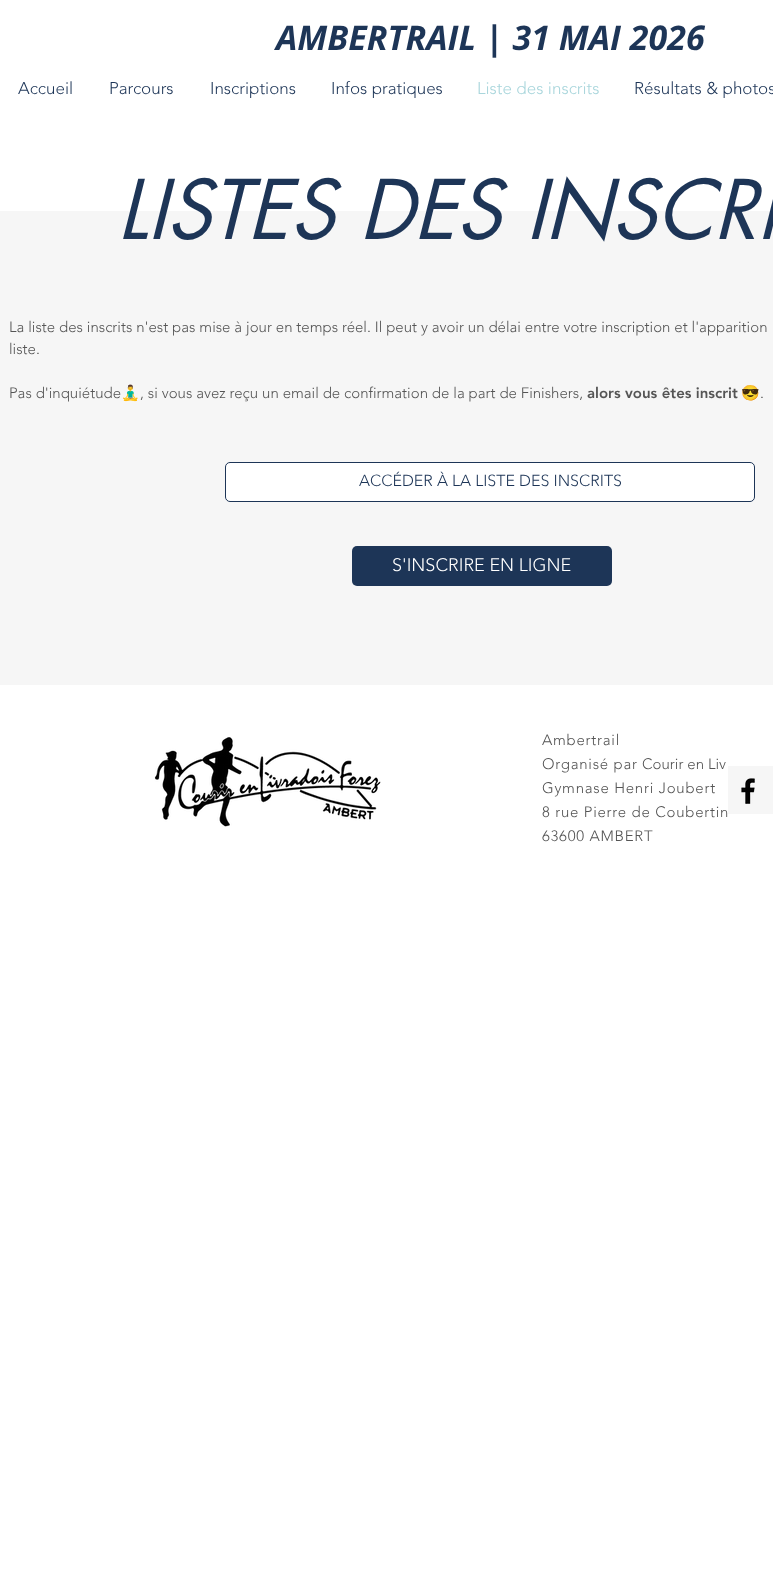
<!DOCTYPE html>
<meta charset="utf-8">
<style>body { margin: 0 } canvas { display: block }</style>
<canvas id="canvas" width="773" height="1582"></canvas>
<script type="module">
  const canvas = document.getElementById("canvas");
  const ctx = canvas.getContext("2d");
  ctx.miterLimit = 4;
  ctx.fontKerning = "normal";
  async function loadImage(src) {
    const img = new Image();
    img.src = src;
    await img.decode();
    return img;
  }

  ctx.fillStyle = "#ffffff";
  ctx.fillRect(0, 0, 773, 1582);
  ctx.font = "italic bold 34px Open Sans";
  ctx.fillStyle = "#1d3557";
  ctx.fillText("AMBERTRAIL | 31 MAI 2026", 276, 50);
  ctx.font = "300 17px 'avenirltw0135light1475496'";
  ctx.fillText("Accueil", 18, 94);
  ctx.fillText("Parcours", 109, 94);
  ctx.fillText("Inscriptions", 210, 94);
  ctx.fillText("Infos pratiques", 331, 94);
  ctx.fillStyle = "#a9d6dc";
  ctx.fillText("Liste des inscrits", 477, 94);
  ctx.fillStyle = "#1d3557";
  ctx.fillText("Résultats & photos", 634, 94);
  ctx.fillStyle = "#f6f6f6";
  ctx.fillRect(0, 211, 773, 474);
  ctx.font = "italic 80px futura";
  ctx.fillStyle = "#1d3557";
  ctx.fillText("LISTES DES INSCRI", 117, 239);
  ctx.font = "300 15px 'avenirltw0135light1475496'";
  ctx.fillStyle = "#555555";
  ctx.fillText("La liste des inscrits n'est pas mise à jour en temps réel. Il peut y avoir un délai entre votre inscription et l'apparition", 9, 332);
  ctx.fillText("liste.", 9, 354);
  ctx.fillText("Pas d'inquiétude", 9, 398);
  ctx.font = "15px Noto Color Emoji";
  ctx.fillText("🧘‍♂️", 121, 398);
  ctx.font = "300 15px 'avenirltw0135light1475496'";
  ctx.fillText(", si vous avez reçu un email de confirmation de la part de Finishers,", 140, 398);
  ctx.font = "900 15px 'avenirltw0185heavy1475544'";
  ctx.fillText("alors vous êtes inscrit", 587, 398);
  ctx.font = "15px Noto Color Emoji";
  ctx.fillText("😎", 741, 398);
  ctx.font = "300 15px 'avenirltw0135light1475496'";
  ctx.fillText(".", 760, 398);
  ctx.fillStyle = "#ffffff";
  ctx.beginPath();
  ctx.roundRect(225.5, 462.5, 529, 39, 4.5);
  ctx.fill();
  ctx.strokeStyle = "#1d3557";
  ctx.stroke();
  ctx.font = "300 16px 'avenirltw0135light1475496'";
  ctx.fillStyle = "#1d3557";
  ctx.fillText("ACCÉDER À LA LISTE DES INSCRITS", 359, 486);
  ctx.beginPath();
  ctx.roundRect(352, 546, 260, 40, 5);
  ctx.fill();
  ctx.font = "300 18px 'avenirltw0135light1475496'";
  ctx.fillStyle = "#ffffff";
  ctx.fillText("S'INSCRIRE EN LIGNE", 392, 571);
  ctx.drawImage(await loadImage("img1.png"), 154, 737, 227, 90);
  ctx.letterSpacing = "0.75px";
  ctx.font = "300 15px 'avenirltw0135light1475496'";
  ctx.fillStyle = "#555555";
  ctx.fillText("Ambertrail", 542, 745);
  ctx.fillText("Organisé par", 542, 769);
  ctx.letterSpacing = "0px";
  ctx.fillText("Courir en Liv", 642, 769);
  ctx.letterSpacing = "0.75px";
  ctx.fillText("Gymnase Henri Joubert", 542, 793);
  ctx.fillText("8 rue Pierre de Coubertin", 542, 817);
  ctx.fillText("63600 AMBERT", 542, 841);
  ctx.fillStyle = "#f6f6f6";
  ctx.fillRect(728, 766, 45, 48);
  ctx.drawImage(await loadImage("img2.png"), 741, 778, 14, 26);
</script>
